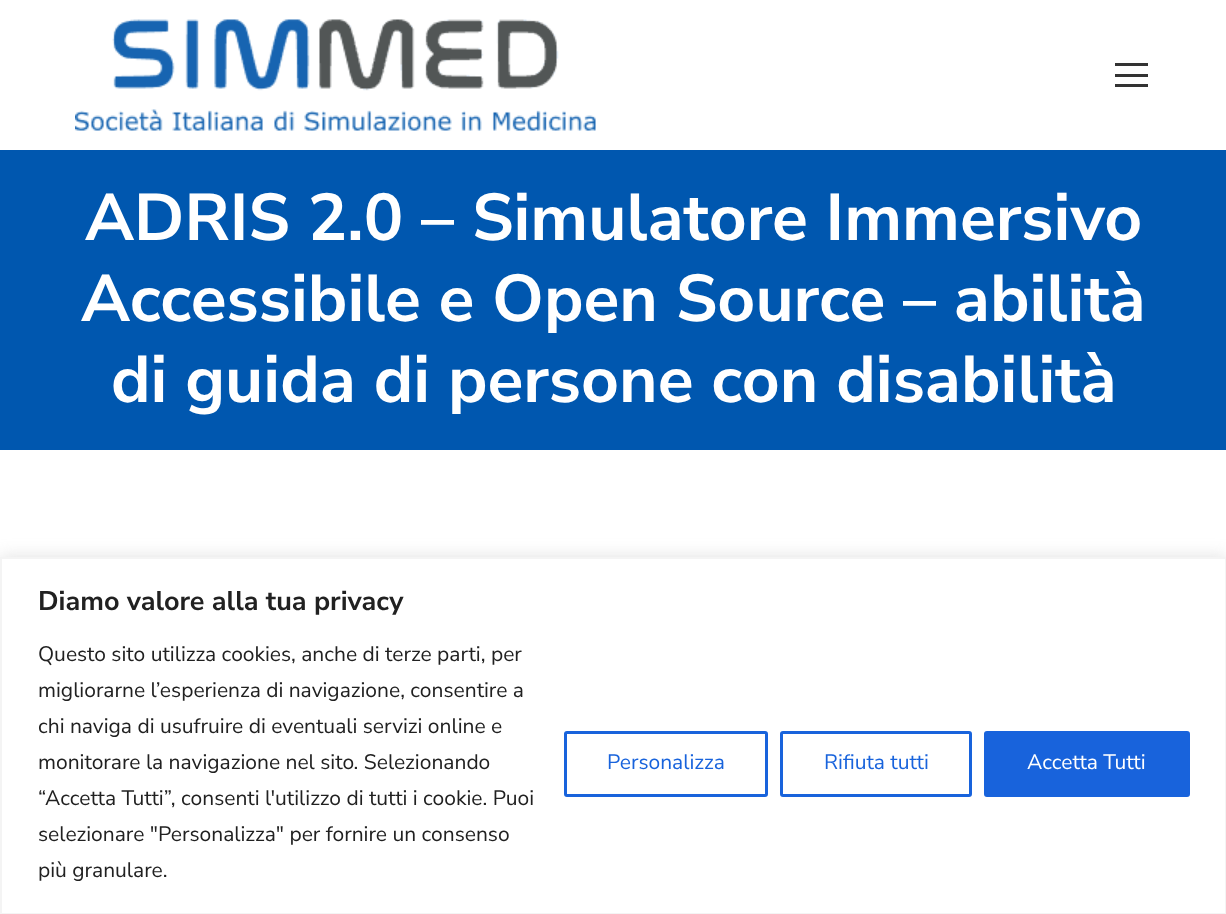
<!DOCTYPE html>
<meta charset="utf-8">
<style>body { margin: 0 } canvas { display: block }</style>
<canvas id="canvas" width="1226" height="914"></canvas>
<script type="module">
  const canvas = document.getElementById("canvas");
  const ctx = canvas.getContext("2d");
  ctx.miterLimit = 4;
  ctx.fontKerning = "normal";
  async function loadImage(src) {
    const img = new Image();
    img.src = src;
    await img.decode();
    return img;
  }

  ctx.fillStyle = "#ffffff";
  ctx.fillRect(0, 0, 1226, 914);
  ctx.drawImage(await loadImage("img1.png"), 75, 19, 521, 112);
  ctx.fillStyle = "#333333";
  ctx.fillRect(1115, 63, 33, 3);
  ctx.fillRect(1115, 74, 33, 3);
  ctx.fillRect(1115, 84, 33, 3);
  ctx.fillStyle = "#0057af";
  ctx.fillRect(0, 150, 1226, 300);
  ctx.font = "bold 66px Nunito Sans";
  ctx.fillStyle = "#ffffff";
  ctx.fillText("ADRIS 2.0 – Simulatore Immersivo", 85, 240);
  ctx.fillText("Accessibile e Open Source – abilità", 81, 321);
  ctx.fillText("di guida di persone con disabilità", 111, 402);
  ctx.fillStyle = "rgba(172, 171, 171, 0.3)";
  ctx.filter = "blur(7.5px)";
  ctx.beginPath();
  ctx.rect(0, 555, 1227, 359);
  ctx.fill();
  ctx.filter = "none";
  ctx.fillStyle = "#ffffff";
  ctx.beginPath();
  ctx.rect(1, 558, 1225, 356);
  ctx.fill();
  ctx.strokeStyle = "#f4f4f4";
  ctx.lineWidth = 2;
  ctx.stroke();
  ctx.font = "bold 27px Nunito Sans";
  ctx.fillStyle = "#212121";
  ctx.fillText("Diamo valore alla tua privacy", 38, 610);
  ctx.font = "21px Nunito Sans";
  ctx.fillText("Questo sito utilizza cookies, anche di terze parti, per", 38, 661);
  ctx.fillText("migliorarne l’esperienza di navigazione, consentire a", 38, 697);
  ctx.fillText("chi naviga di usufruire di eventuali servizi online e", 38, 733);
  ctx.fillText("monitorare la navigazione nel sito. Selezionando", 38, 769);
  ctx.fillText("“Accetta Tutti”, consenti l'utilizzo di tutti i cookie. Puoi", 38, 805);
  ctx.fillText("selezionare \"Personalizza\" per fornire un consenso", 38, 841);
  ctx.fillText("più granulare.", 38, 877);
  ctx.beginPath();
  ctx.roundRect(565.5, 732.5, 201, 63, 1.5);
  ctx.strokeStyle = "#1863dc";
  ctx.lineWidth = 3;
  ctx.stroke();
  ctx.fillStyle = "#1863dc";
  ctx.fillText("Personalizza", 607, 769);
  ctx.beginPath();
  ctx.roundRect(781.5, 732.5, 189, 63, 1.5);
  ctx.stroke();
  ctx.fillText("Rifiuta tutti", 824, 769);
  ctx.beginPath();
  ctx.roundRect(985.5, 732.5, 203, 63, 1.5);
  ctx.fill();
  ctx.stroke();
  ctx.fillStyle = "#ffffff";
  ctx.fillText("Accetta Tutti", 1027, 769);
</script>
